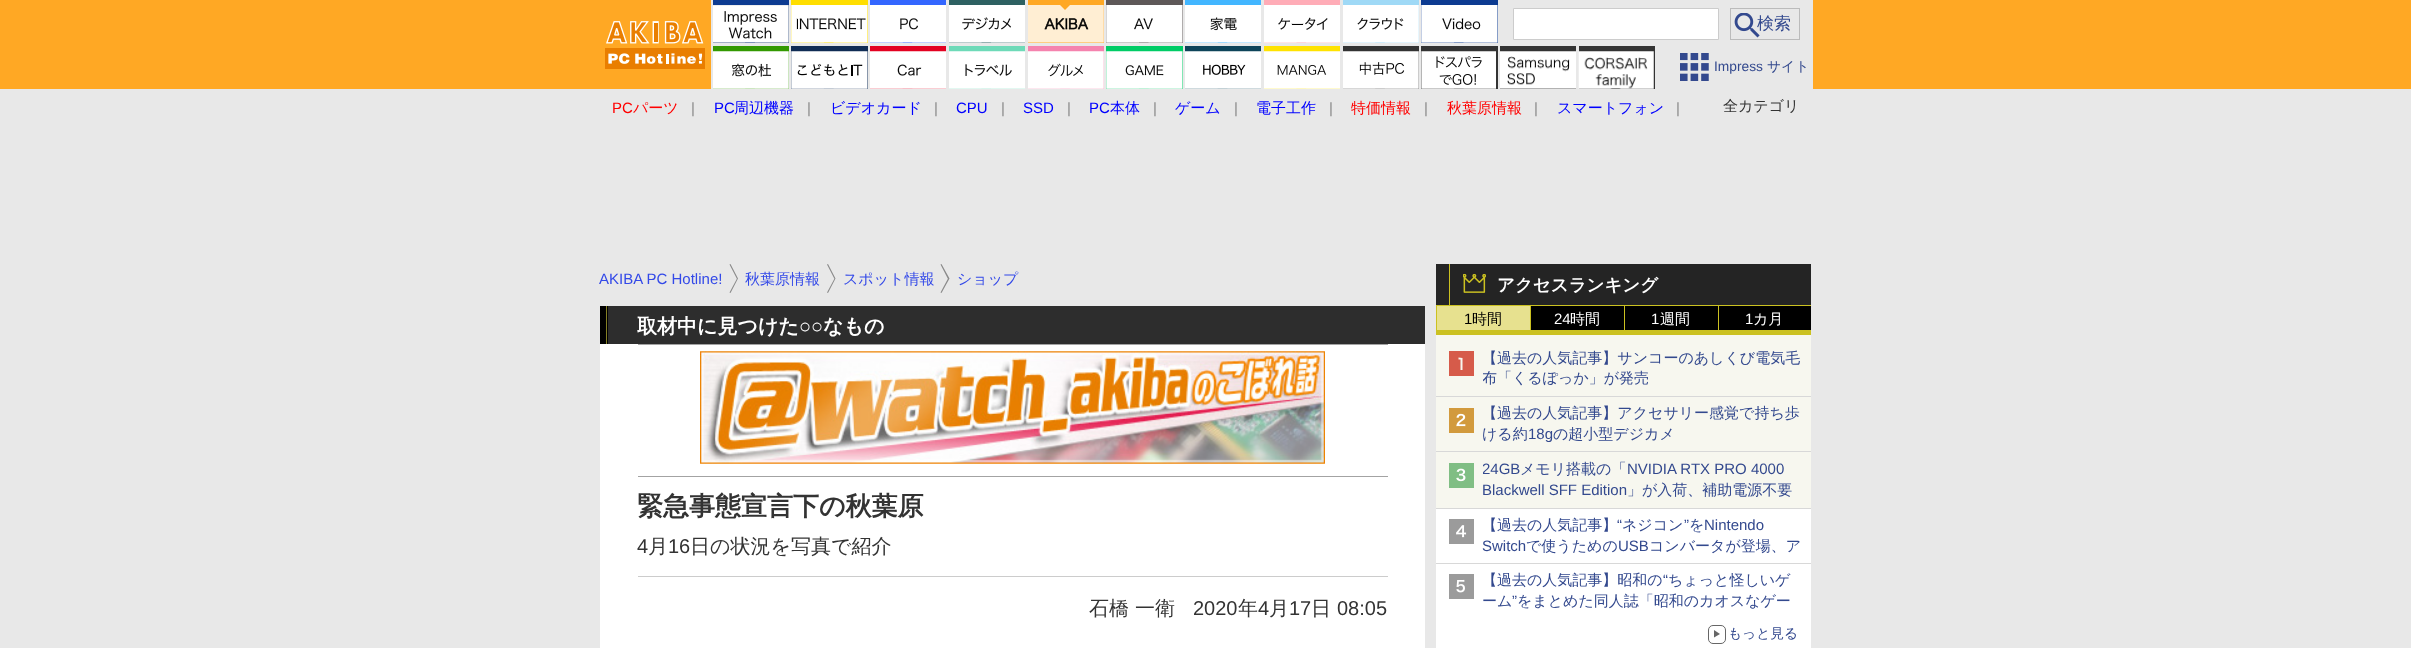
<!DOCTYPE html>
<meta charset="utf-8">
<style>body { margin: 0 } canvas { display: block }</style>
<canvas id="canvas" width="2411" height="648"></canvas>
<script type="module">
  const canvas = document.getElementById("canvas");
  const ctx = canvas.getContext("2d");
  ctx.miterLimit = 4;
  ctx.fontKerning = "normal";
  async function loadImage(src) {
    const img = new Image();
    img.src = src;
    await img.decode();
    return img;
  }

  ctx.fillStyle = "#e8e8e8";
  ctx.fillRect(0, 0, 2411, 648);
  ctx.fillStyle = "#ffa824";
  ctx.fillRect(0, 0, 2411, 89);
  ctx.drawImage(await loadImage("img1.png"), 605, 21, 100, 48);
  ctx.fillStyle = "#e8e8e8";
  ctx.fillRect(711, 0, 1102, 89);
  ctx.fillStyle = "#0d3b91";
  ctx.fillRect(713, 0, 76, 43);
  ctx.drawImage(await loadImage("img2.png"), 713, 5, 76, 38);
  ctx.fillStyle = "#ffde00";
  ctx.fillRect(791, 0, 77, 43);
  ctx.drawImage(await loadImage("img3.png"), 791, 5, 77, 38);
  ctx.fillStyle = "#3366ff";
  ctx.fillRect(870, 0, 76, 43);
  ctx.drawImage(await loadImage("img4.png"), 870, 5, 76, 38);
  ctx.fillStyle = "#2e6162";
  ctx.fillRect(949, 0, 76, 43);
  ctx.drawImage(await loadImage("img5.png"), 949, 5, 76, 38);
  ctx.fillStyle = "#ffa824";
  ctx.fillRect(1028, 0, 76, 43);
  ctx.drawImage(await loadImage("img6.png"), 1028, 5, 76, 38);
  ctx.fillStyle = "#5e5858";
  ctx.fillRect(1106, 0, 77, 43);
  ctx.drawImage(await loadImage("img7.png"), 1106, 5, 77, 38);
  ctx.fillStyle = "#42b6ff";
  ctx.fillRect(1185, 0, 76, 43);
  ctx.drawImage(await loadImage("img8.png"), 1185, 5, 76, 38);
  ctx.fillStyle = "#ffacb7";
  ctx.fillRect(1264, 0, 76, 43);
  ctx.drawImage(await loadImage("img9.png"), 1264, 5, 76, 38);
  ctx.fillStyle = "#9fd9f6";
  ctx.fillRect(1343, 0, 76, 43);
  ctx.drawImage(await loadImage("img10.png"), 1343, 5, 76, 38);
  ctx.fillStyle = "#0d3b91";
  ctx.fillRect(1421, 0, 77, 43);
  ctx.drawImage(await loadImage("img11.png"), 1421, 5, 77, 38);
  ctx.fillStyle = "#ffffff";
  ctx.beginPath();
  ctx.rect(1513.5, 8.5, 205, 31);
  ctx.fill();
  ctx.strokeStyle = "#cccccc";
  ctx.stroke();
  ctx.drawImage(await loadImage("img12.png"), 1734, 13, 26, 25);
  ctx.strokeStyle = "#bbbbbb";
  ctx.strokeRect(1730.5, 8.5, 69, 31);
  ctx.font = "500 17px WenQuanYi Zen Hei";
  ctx.fillStyle = "#33498e";
  ctx.fillText("検索", 1757, 29);
  ctx.fillStyle = "#339900";
  ctx.fillRect(713, 46, 76, 43);
  ctx.drawImage(await loadImage("img13.png"), 713, 51, 76, 38);
  ctx.fillStyle = "#102c54";
  ctx.fillRect(791, 46, 77, 43);
  ctx.drawImage(await loadImage("img14.png"), 791, 51, 77, 38);
  ctx.fillStyle = "#e30121";
  ctx.fillRect(870, 46, 76, 43);
  ctx.drawImage(await loadImage("img15.png"), 870, 51, 76, 38);
  ctx.fillStyle = "#6edab8";
  ctx.fillRect(949, 46, 76, 43);
  ctx.drawImage(await loadImage("img16.png"), 949, 51, 76, 38);
  ctx.fillStyle = "#f583ae";
  ctx.fillRect(1028, 46, 76, 43);
  ctx.drawImage(await loadImage("img17.png"), 1028, 51, 76, 38);
  ctx.fillStyle = "#00cc66";
  ctx.fillRect(1106, 46, 77, 43);
  ctx.drawImage(await loadImage("img18.png"), 1106, 51, 77, 38);
  ctx.fillStyle = "#0e4459";
  ctx.fillRect(1185, 46, 76, 43);
  ctx.drawImage(await loadImage("img19.png"), 1185, 51, 76, 38);
  ctx.fillStyle = "#ffe200";
  ctx.fillRect(1264, 46, 76, 43);
  ctx.drawImage(await loadImage("img20.png"), 1264, 51, 76, 38);
  ctx.fillStyle = "#333333";
  ctx.fillRect(1343, 46, 76, 43);
  ctx.drawImage(await loadImage("img21.png"), 1343, 51, 76, 38);
  ctx.fillRect(1421, 46, 77, 43);
  ctx.drawImage(await loadImage("img22.png"), 1421, 51, 75, 38);
  ctx.fillRect(1500, 46, 76, 43);
  ctx.drawImage(await loadImage("img23.png"), 1500, 51, 76, 38);
  ctx.fillRect(1579, 46, 76, 43);
  ctx.drawImage(await loadImage("img24.png"), 1578, 51, 76, 38);
  ctx.drawImage(await loadImage("img25.png"), 1680, 53, 29, 28);
  ctx.font = "13.75px Liberation Sans";
  ctx.fillStyle = "#33498e";
  ctx.fillText("Impress", 1714, 71);
  ctx.font = "500 13.75px WenQuanYi Zen Hei";
  ctx.fillText("サイト", 1767, 71);
  ctx.font = "15px Liberation Sans";
  ctx.fillStyle = "#ff0000";
  ctx.fillText("PC", 612, 113);
  ctx.font = "500 15px WenQuanYi Zen Hei";
  ctx.fillText("パーツ", 633, 113);
  ctx.font = "15px Liberation Sans";
  ctx.fillStyle = "#8a8a8a";
  ctx.fillText("|", 691, 113);
  ctx.fillStyle = "#0000ff";
  ctx.fillText("PC", 714, 113);
  ctx.font = "500 15px WenQuanYi Zen Hei";
  ctx.fillText("周辺機器", 734, 113);
  ctx.font = "15px Liberation Sans";
  ctx.fillStyle = "#8a8a8a";
  ctx.fillText("|", 807, 113);
  ctx.font = "500 15px WenQuanYi Zen Hei";
  ctx.fillStyle = "#0000ff";
  ctx.fillText("ビデオカード", 830, 113);
  ctx.font = "15px Liberation Sans";
  ctx.fillStyle = "#8a8a8a";
  ctx.fillText("|", 934, 113);
  ctx.fillStyle = "#0000ff";
  ctx.fillText("CPU", 956, 113);
  ctx.fillStyle = "#8a8a8a";
  ctx.fillText("|", 1001, 113);
  ctx.fillStyle = "#0000ff";
  ctx.fillText("SSD", 1023, 113);
  ctx.fillStyle = "#8a8a8a";
  ctx.fillText("|", 1067, 113);
  ctx.fillStyle = "#0000ff";
  ctx.fillText("PC", 1089, 113);
  ctx.font = "500 15px WenQuanYi Zen Hei";
  ctx.fillText("本体", 1110, 113);
  ctx.font = "15px Liberation Sans";
  ctx.fillStyle = "#8a8a8a";
  ctx.fillText("|", 1153, 113);
  ctx.font = "500 15px WenQuanYi Zen Hei";
  ctx.fillStyle = "#0000ff";
  ctx.fillText("ゲーム", 1175, 113);
  ctx.font = "15px Liberation Sans";
  ctx.fillStyle = "#8a8a8a";
  ctx.fillText("|", 1234, 113);
  ctx.font = "500 15px WenQuanYi Zen Hei";
  ctx.fillStyle = "#0000ff";
  ctx.fillText("電子工作", 1256, 113);
  ctx.font = "15px Liberation Sans";
  ctx.fillStyle = "#8a8a8a";
  ctx.fillText("|", 1329, 113);
  ctx.font = "500 15px WenQuanYi Zen Hei";
  ctx.fillStyle = "#ff0000";
  ctx.fillText("特価情報", 1351, 113);
  ctx.font = "15px Liberation Sans";
  ctx.fillStyle = "#8a8a8a";
  ctx.fillText("|", 1424, 113);
  ctx.font = "500 15px WenQuanYi Zen Hei";
  ctx.fillStyle = "#ff0000";
  ctx.fillText("秋葉原情報", 1447, 113);
  ctx.font = "15px Liberation Sans";
  ctx.fillStyle = "#8a8a8a";
  ctx.fillText("|", 1534, 113);
  ctx.font = "500 15px WenQuanYi Zen Hei";
  ctx.fillStyle = "#0000ff";
  ctx.fillText("スマートフォン", 1557, 113);
  ctx.font = "15px Liberation Sans";
  ctx.fillStyle = "#8a8a8a";
  ctx.fillText("|", 1676, 113);
  ctx.font = "500 15px WenQuanYi Zen Hei";
  ctx.fillStyle = "#333333";
  ctx.fillText("全カテゴリ", 1723, 111);
  ctx.fillStyle = "#8a8a8a";
  ctx.beginPath();
  ctx.moveTo(729.5, 264.5);
  ctx.lineTo(737, 279);
  ctx.lineTo(737, 278.5);
  ctx.lineTo(729.5, 292.5);
  ctx.lineTo(730.5, 293);
  ctx.lineTo(738, 278.5);
  ctx.lineTo(730.5, 264);
  ctx.closePath();
  ctx.fill();
  ctx.font = "15px Liberation Sans";
  ctx.fillStyle = "#3349e8";
  ctx.fillText("AKIBA PC Hotline!", 599, 284);
  ctx.fillStyle = "#8a8a8a";
  ctx.beginPath();
  ctx.moveTo(827, 264.5);
  ctx.lineTo(834.5, 279);
  ctx.lineTo(834.5, 278.5);
  ctx.lineTo(827, 292.5);
  ctx.lineTo(828, 293);
  ctx.lineTo(835.5, 278.5);
  ctx.lineTo(828, 264);
  ctx.closePath();
  ctx.fill();
  ctx.font = "500 15px WenQuanYi Zen Hei";
  ctx.fillStyle = "#3349e8";
  ctx.fillText("秋葉原情報", 745, 284);
  ctx.fillStyle = "#8a8a8a";
  ctx.beginPath();
  ctx.moveTo(940.5, 264.5);
  ctx.lineTo(948, 279);
  ctx.lineTo(948, 278.5);
  ctx.lineTo(940.5, 292.5);
  ctx.lineTo(941.5, 293);
  ctx.lineTo(949.5, 278.5);
  ctx.lineTo(941.5, 264);
  ctx.closePath();
  ctx.fill();
  ctx.fillStyle = "#3349e8";
  ctx.fillText("スポット情報", 843, 284);
  ctx.fillText("ショップ", 957, 284);
  ctx.fillStyle = "#ffffff";
  ctx.fillRect(600, 344, 825, 304);
  ctx.fillStyle = "#2d2d2d";
  ctx.fillRect(608, 306, 817, 38);
  ctx.fillStyle = "#000000";
  ctx.fillRect(600, 306, 8, 38);
  ctx.fillStyle = "#858026";
  ctx.fillRect(606, 306, 1, 38);
  ctx.font = "bold 20px WenQuanYi Zen Hei";
  ctx.fillStyle = "#ffffff";
  ctx.fillText("取材中に見つけた", 637, 333);
  ctx.font = "bold 20px Liberation Sans";
  ctx.fillText("○○", 799, 333);
  ctx.font = "bold 20px WenQuanYi Zen Hei";
  ctx.fillText("なもの", 823, 333);
  ctx.fillStyle = "#a3a3a3";
  ctx.fillRect(638, 344, 750, 1);
  ctx.drawImage(await loadImage("img26.png"), 700, 351, 625, 113);
  ctx.fillRect(638, 476, 750, 1);
  ctx.font = "bold 26px WenQuanYi Zen Hei";
  ctx.fillStyle = "#333333";
  ctx.fillText("緊急事態宣言下の秋葉原", 637, 515);
  ctx.font = "20px Liberation Sans";
  ctx.fillText("4", 637, 553);
  ctx.font = "500 20px WenQuanYi Zen Hei";
  ctx.fillText("月", 648, 553);
  ctx.font = "20px Liberation Sans";
  ctx.fillText("16", 668, 553);
  ctx.font = "500 20px WenQuanYi Zen Hei";
  ctx.fillText("日の状況を写真で紹介", 690, 553);
  ctx.fillStyle = "#cccccc";
  ctx.fillRect(638, 576, 750, 1);
  ctx.fillStyle = "#333333";
  ctx.fillText("石橋 一衛", 1089, 615);
  ctx.font = "20px Liberation Sans";
  ctx.fillText("2020", 1193, 615);
  ctx.font = "500 20px WenQuanYi Zen Hei";
  ctx.fillText("年", 1238, 615);
  ctx.font = "20px Liberation Sans";
  ctx.fillText("4", 1258, 615);
  ctx.font = "500 20px WenQuanYi Zen Hei";
  ctx.fillText("月", 1269, 615);
  ctx.font = "20px Liberation Sans";
  ctx.fillText("17", 1289, 615);
  ctx.font = "500 20px WenQuanYi Zen Hei";
  ctx.fillText("日", 1311, 615);
  ctx.font = "20px Liberation Sans";
  ctx.fillText("08:05", 1337, 615);
  ctx.fillStyle = "#242424";
  ctx.fillRect(1436, 264, 375, 41);
  ctx.fillStyle = "#cbc121";
  ctx.fillRect(1436, 305, 375, 1);
  ctx.fillRect(1449, 264, 1, 42);
  ctx.drawImage(await loadImage("img27.png"), 1463, 274, 23, 19);
  ctx.font = "bold 17.5px WenQuanYi Zen Hei";
  ctx.fillStyle = "#ffffff";
  ctx.fillText("アクセスランキング", 1497, 291);
  ctx.fillStyle = "#e7e18f";
  ctx.fillRect(1437, 306, 93, 24);
  ctx.fillStyle = "#cbc121";
  ctx.fillRect(1436, 330, 375, 5);
  ctx.fillRect(1436, 306, 1, 29);
  ctx.font = "15px Liberation Sans";
  ctx.fillStyle = "#000000";
  ctx.fillText("1", 1464, 324);
  ctx.font = "500 15px WenQuanYi Zen Hei";
  ctx.fillText("時間", 1472, 324);
  ctx.fillRect(1531, 306, 93, 24);
  ctx.fillStyle = "#cbc121";
  ctx.fillRect(1530, 306, 1, 29);
  ctx.font = "15px Liberation Sans";
  ctx.fillStyle = "#ffffff";
  ctx.fillText("24", 1554, 324);
  ctx.font = "500 15px WenQuanYi Zen Hei";
  ctx.fillText("時間", 1570, 324);
  ctx.fillStyle = "#000000";
  ctx.fillRect(1625, 306, 93, 24);
  ctx.fillStyle = "#cbc121";
  ctx.fillRect(1624, 306, 1, 29);
  ctx.font = "15px Liberation Sans";
  ctx.fillStyle = "#ffffff";
  ctx.fillText("1", 1651, 324);
  ctx.font = "500 15px WenQuanYi Zen Hei";
  ctx.fillText("週間", 1660, 324);
  ctx.fillStyle = "#000000";
  ctx.fillRect(1719, 306, 92, 24);
  ctx.fillStyle = "#cbc121";
  ctx.fillRect(1718, 306, 1, 29);
  ctx.font = "15px Liberation Sans";
  ctx.fillStyle = "#ffffff";
  ctx.fillText("1", 1745, 324);
  ctx.font = "500 15px WenQuanYi Zen Hei";
  ctx.fillText("カ月", 1753, 324);
  ctx.fillStyle = "#f7f7ef";
  ctx.fillRect(1436, 335, 375, 173);
  ctx.fillStyle = "#d8d8d8";
  ctx.fillRect(1436, 396, 375, 1);
  ctx.fillStyle = "#d65b4a";
  ctx.fillRect(1449, 351, 25, 25);
  ctx.fillStyle = "#f7f7ef";
  ctx.beginPath();
  ctx.moveTo(1462.5, 370);
  ctx.lineTo(1462.5, 358);
  ctx.lineTo(1458.5, 357.5);
  ctx.lineTo(1458.5, 359.5);
  ctx.lineTo(1460.5, 359.5);
  ctx.lineTo(1460.5, 370);
  ctx.closePath();
  ctx.fill();
  ctx.fillStyle = "#33498e";
  ctx.fillText("【過去の人気記事】サンコーのあしくび電気毛", 1482, 363);
  ctx.save();
  ctx.beginPath();
  ctx.rect(1483, 348, 322, 42);
  ctx.clip();
  ctx.fillText("布「くるぽっか」が発売", 1482, 383);
  ctx.restore();
  ctx.fillStyle = "#d8d8d8";
  ctx.fillRect(1436, 451, 375, 1);
  ctx.drawImage(await loadImage("img28.png"), 1449, 408, 25, 25);
  ctx.fillStyle = "#33498e";
  ctx.fillText("【過去の人気記事】アクセサリー感覚で持ち歩", 1482, 418);
  ctx.fillText("ける約", 1482, 439);
  ctx.font = "15px Liberation Sans";
  ctx.fillText("18g", 1528, 439);
  ctx.font = "500 15px WenQuanYi Zen Hei";
  ctx.fillText("の超小型デジカメ", 1553, 439);
  ctx.fillStyle = "#d8d8d8";
  ctx.fillRect(1436, 508, 375, 1);
  ctx.drawImage(await loadImage("img29.png"), 1449, 463, 25, 25);
  ctx.save();
  ctx.beginPath();
  ctx.rect(1483, 459, 322, 42);
  ctx.clip();
  ctx.font = "15px Liberation Sans";
  ctx.fillStyle = "#33498e";
  ctx.fillText("24GB", 1482, 474);
  ctx.restore();
  ctx.fillStyle = "#33498e";
  ctx.fillText("メモリ搭載の「", 1520, 474);
  ctx.font = "15px Liberation Sans";
  ctx.fillText("NVIDIA RTX PRO 4000", 1627, 474);
  ctx.fillText("Blackwell SFF Edition", 1482, 495);
  ctx.font = "500 15px WenQuanYi Zen Hei";
  ctx.fillText("」が入荷、補助電源不要", 1627, 495);
  ctx.fillStyle = "#ffffff";
  ctx.fillRect(1436, 509, 375, 139);
  ctx.fillStyle = "#d8d8d8";
  ctx.fillRect(1436, 563, 375, 1);
  ctx.drawImage(await loadImage("img30.png"), 1449, 519, 25, 25);
  ctx.fillStyle = "#33498e";
  ctx.fillText("【過去の人気記事】", 1482, 530);
  ctx.font = "15px Liberation Sans";
  ctx.fillText("“", 1617, 530);
  ctx.font = "500 15px WenQuanYi Zen Hei";
  ctx.fillText("ネジコン", 1622, 530);
  ctx.font = "15px Liberation Sans";
  ctx.fillText("”", 1684, 530);
  ctx.font = "500 15px WenQuanYi Zen Hei";
  ctx.fillText("を", 1689, 530);
  ctx.font = "15px Liberation Sans";
  ctx.fillText("Nintendo", 1704, 530);
  ctx.fillText("Switch", 1482, 551);
  ctx.font = "500 15px WenQuanYi Zen Hei";
  ctx.fillText("で使うための", 1526, 551);
  ctx.font = "15px Liberation Sans";
  ctx.fillText("USB", 1618, 551);
  ctx.font = "500 15px WenQuanYi Zen Hei";
  ctx.fillText("コンバータが登場、ア", 1649, 551);
  ctx.drawImage(await loadImage("img31.png"), 1449, 574, 25, 25);
  ctx.fillText("【過去の人気記事】昭和の", 1482, 585);
  ctx.font = "15px Liberation Sans";
  ctx.fillText("“", 1663, 585);
  ctx.font = "500 15px WenQuanYi Zen Hei";
  ctx.fillText("ちょっと怪しいゲ", 1668, 585);
  ctx.fillText("ーム", 1482, 606);
  ctx.font = "15px Liberation Sans";
  ctx.fillText("”", 1512, 606);
  ctx.font = "500 15px WenQuanYi Zen Hei";
  ctx.fillText("をまとめた同人誌「昭和のカオスなゲー", 1517, 606);
  ctx.beginPath();
  ctx.roundRect(1708.5, 625.5, 17, 18, 4.5);
  ctx.strokeStyle = "#666666";
  ctx.stroke();
  ctx.font = "500 13.75px WenQuanYi Zen Hei";
  ctx.fillText("もっと見る", 1728, 638);
  ctx.fillStyle = "#666666";
  ctx.beginPath();
  ctx.moveTo(1714, 637.5);
  ctx.lineTo(1714, 630);
  ctx.lineTo(1720, 634);
  ctx.closePath();
  ctx.fill();
</script>
